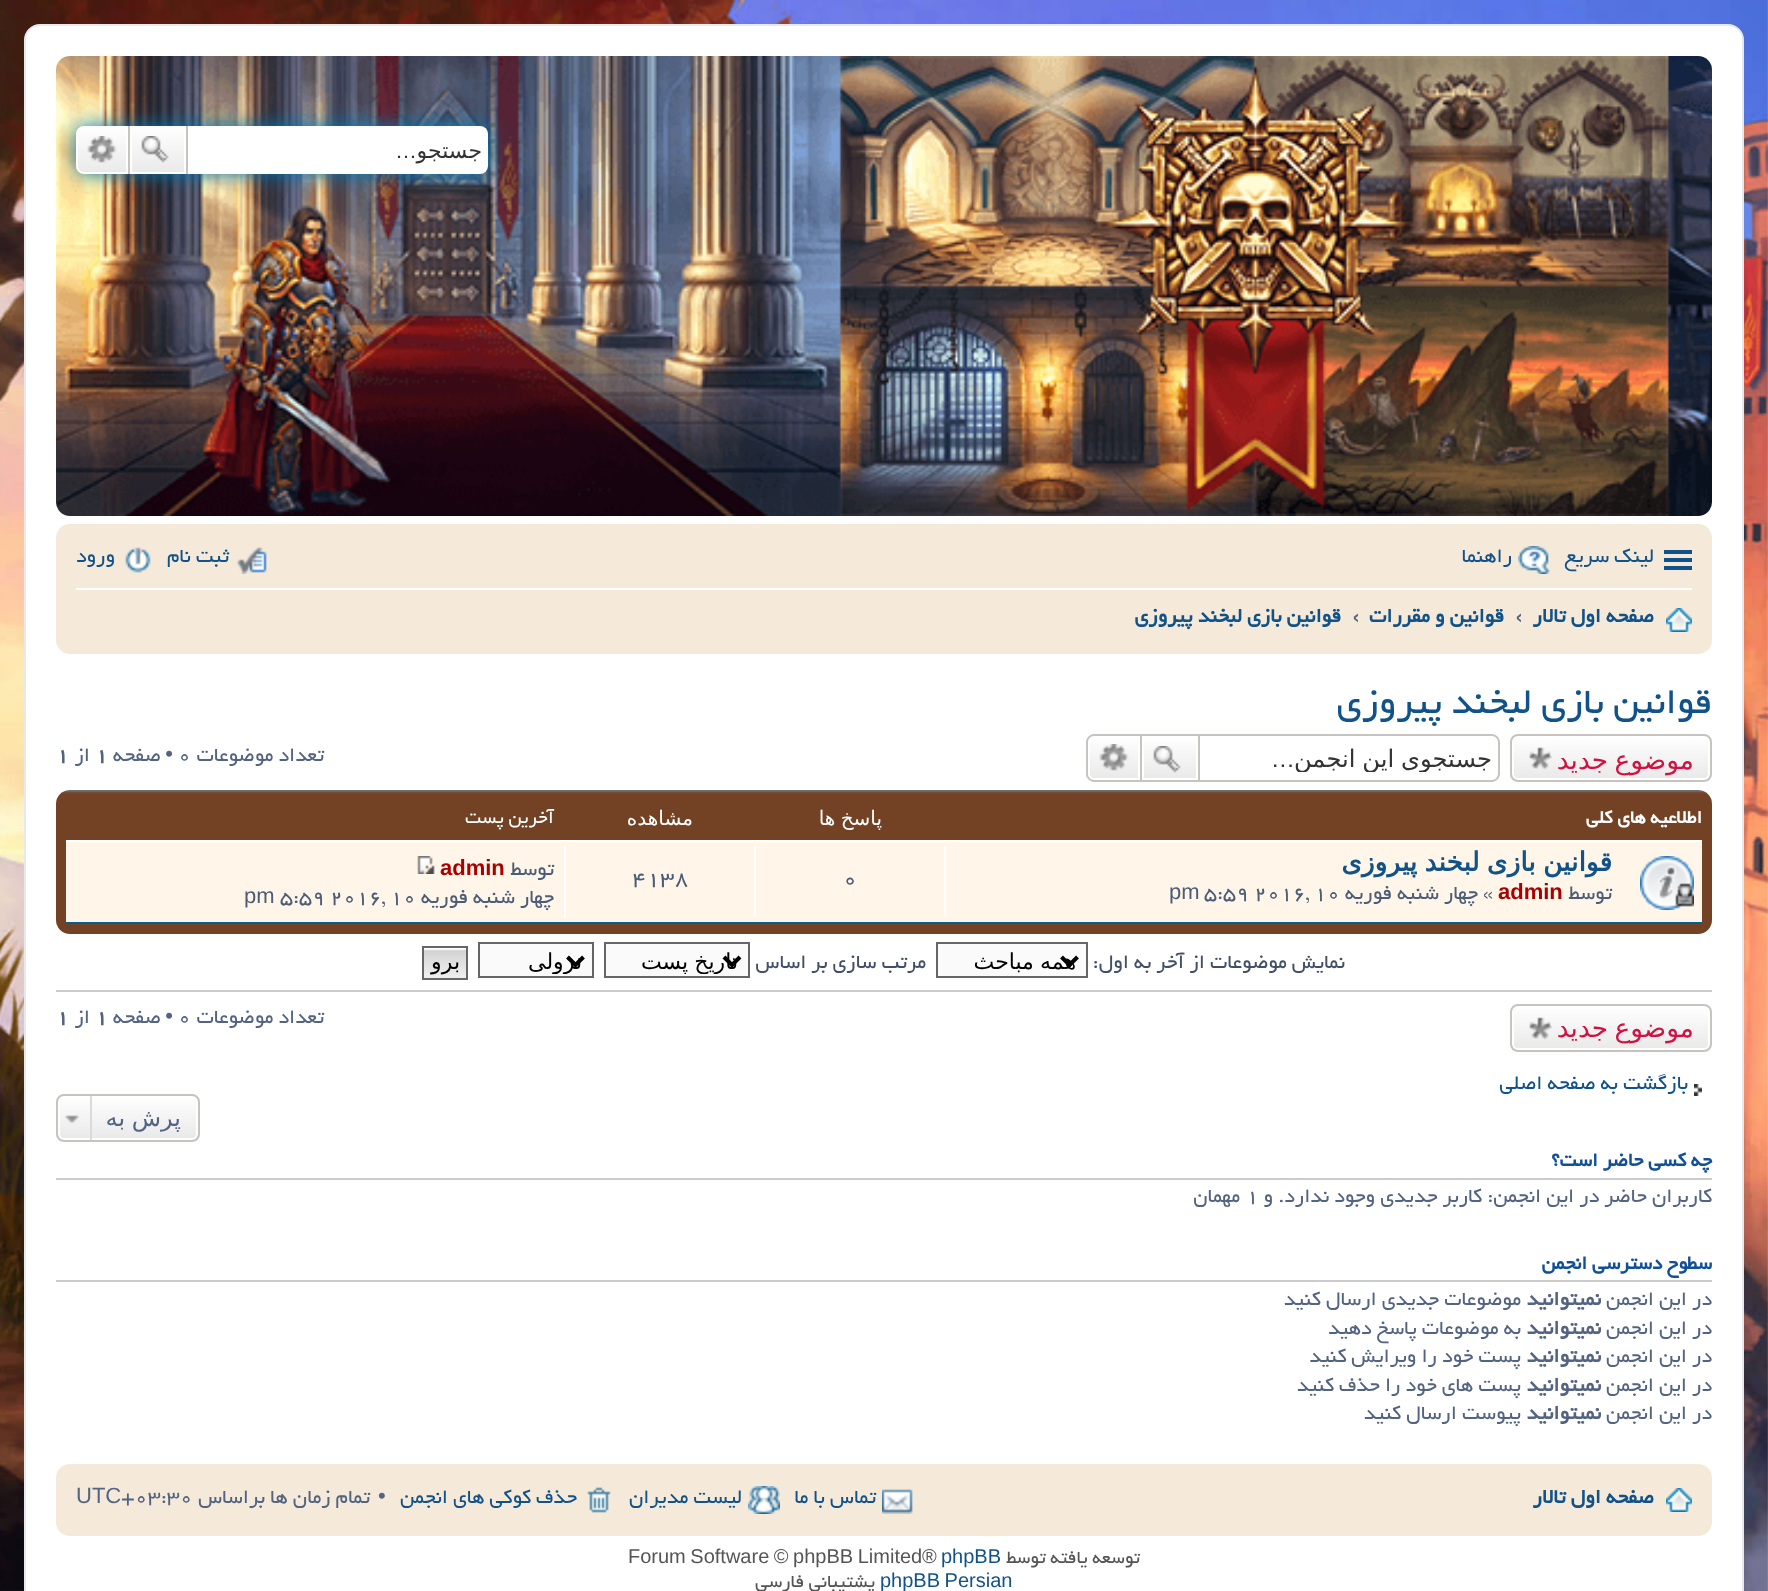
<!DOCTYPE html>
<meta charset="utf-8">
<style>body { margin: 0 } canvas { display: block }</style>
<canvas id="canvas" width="1768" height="1591"></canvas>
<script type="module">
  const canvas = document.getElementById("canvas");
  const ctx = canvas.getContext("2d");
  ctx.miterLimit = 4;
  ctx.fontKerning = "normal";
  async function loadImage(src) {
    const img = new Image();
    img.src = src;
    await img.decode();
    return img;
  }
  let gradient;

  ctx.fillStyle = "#ffffff";
  ctx.fillRect(0, 0, 1768, 1591);
  ctx.drawImage(await loadImage("img1.png"), 0, 0, 1768, 1591);
  ctx.drawImage(await loadImage("img2.png"), 1767, 0, 1, 1591);
  ctx.beginPath();
  ctx.roundRect(25, 25, 1718, 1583, 15);
  ctx.fill();
  ctx.strokeStyle = "#e6e9ed";
  ctx.lineWidth = 2;
  ctx.stroke();
  ctx.drawImage(await loadImage("img3.png"), 56, 56, 1656, 460);
  ctx.fillStyle = "#0075b0";
  ctx.filter = "blur(10px)";
  ctx.beginPath();
  ctx.roundRect(76, 126, 412, 48, 8);
  ctx.fill();
  ctx.filter = "none";
  ctx.fillStyle = "#ffffff";
  ctx.beginPath();
  ctx.roundRect(188, 126, 300, 48, [0, 8, 8, 0]);
  ctx.fill();
  ctx.direction = "rtl";
  ctx.font = "22px DejaVu Sans";
  ctx.fillStyle = "#333333";
  ctx.fillText("جستجو", 482, 158);
  ctx.font = "22px Liberation Sans";
  ctx.fillText("…", 417, 158);
  gradient = ctx.createLinearGradient(158, 126, 158, 174);
  gradient.addColorStop(0, "#ffffff");
  gradient.addColorStop(1, "#e9e9e9");
  ctx.fillStyle = gradient;
  ctx.fillRect(132, 128, 52, 44);
  ctx.strokeStyle = "#ffffff";
  ctx.strokeRect(131, 127, 54, 46);
  ctx.fillStyle = "#c7c3bf";
  ctx.fillRect(186, 126, 2, 48);
  ctx.fillRect(128, 126, 2, 48);
  ctx.drawImage(await loadImage("img4.png"), 141, 136, 28, 27);
  gradient = ctx.createLinearGradient(102, 126, 102, 174);
  gradient.addColorStop(0, "#ffffff");
  gradient.addColorStop(1, "#e9e9e9");
  ctx.fillStyle = gradient;
  ctx.beginPath();
  ctx.roundRect(77, 127, 50, 46, [7, 0, 0, 7]);
  ctx.fill();
  ctx.stroke();
  ctx.drawImage(await loadImage("img5.png"), 87, 136, 30, 27);
  ctx.fillStyle = "#f5ead9";
  ctx.beginPath();
  ctx.roundRect(56, 524, 1656, 130, 14);
  ctx.fill();
  ctx.fillStyle = "#105289";
  ctx.fillRect(1664, 550, 28, 4);
  ctx.fillRect(1664, 558, 28, 4);
  ctx.fillRect(1664, 566, 28, 4);
  ctx.font = "22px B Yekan";
  ctx.fillText("لینک سریع", 1654, 562);
  ctx.drawImage(await loadImage("img6.png"), 1518, 546, 32, 28);
  ctx.fillText("راهنما", 1512, 562);
  ctx.drawImage(await loadImage("img7.png"), 237, 547, 30, 27);
  ctx.fillText("ثبت نام", 229, 562);
  ctx.drawImage(await loadImage("img8.png"), 125, 547, 26, 26);
  ctx.fillText("ورود", 115, 562);
  ctx.fillStyle = "#ffffff";
  ctx.fillRect(76, 588, 1616, 2);
  ctx.drawImage(await loadImage("img9.png"), 1666, 608, 26, 24);
  ctx.font = "bold 22px B Yekan";
  ctx.fillStyle = "#105289";
  ctx.fillText("صفحه اول تالار", 1654, 622);
  ctx.direction = "ltr";
  ctx.fillStyle = "#536482";
  ctx.fillText("‹", 1515, 622);
  ctx.direction = "rtl";
  ctx.fillStyle = "#105289";
  ctx.fillText("قوانین و مقررات", 1504, 622);
  ctx.direction = "ltr";
  ctx.fillStyle = "#536482";
  ctx.fillText("‹", 1352, 622);
  ctx.direction = "rtl";
  ctx.fillStyle = "#105289";
  ctx.fillText("قوانین بازی لبخند پیروزی", 1341, 622);
  ctx.font = "40px B Yekan";
  ctx.fillText("قوانین بازی لبخند پیروزی", 1712, 713);
  ctx.save();
  ctx.beginPath();
  ctx.roundRect(1510, 734, 202, 48, 8);
  ctx.clip();
  gradient = ctx.createLinearGradient(1611, 736, 1611, 780);
  gradient.addColorStop(0, "#ffffff");
  gradient.addColorStop(1, "#e9e9e9");
  ctx.fillStyle = gradient;
  ctx.fillRect(1510, 736, 202, 44);
  ctx.restore();
  ctx.beginPath();
  ctx.roundRect(1513, 737, 196, 42, 5);
  ctx.stroke();
  ctx.beginPath();
  ctx.roundRect(1511, 735, 200, 46, 7);
  ctx.strokeStyle = "#c7c3bf";
  ctx.stroke();
  ctx.wordSpacing = "-2px";
  ctx.font = "26.4px DejaVu Sans";
  ctx.fillStyle = "#d31141";
  ctx.fillText("موضوع جدید", 1694, 769);
  ctx.drawImage(await loadImage("img10.png"), 1529, 747, 23, 23);
  ctx.fillStyle = "#c7c3bf";
  ctx.beginPath();
  ctx.moveTo(1200, 734);
  ctx.lineTo(1492, 734);
  ctx.bezierCurveTo(1496, 734, 1500, 738, 1500, 742);
  ctx.lineTo(1500, 774);
  ctx.bezierCurveTo(1500, 778, 1496, 782, 1492, 782);
  ctx.lineTo(1200, 782);
  ctx.closePath();
  ctx.moveTo(1200, 736);
  ctx.lineTo(1492, 736);
  ctx.bezierCurveTo(1495, 736, 1498, 739, 1498, 742);
  ctx.lineTo(1498, 774);
  ctx.bezierCurveTo(1498, 777, 1495, 780, 1492, 780);
  ctx.lineTo(1200, 780);
  ctx.closePath();
  ctx.fill("evenodd");
  ctx.save();
  ctx.beginPath();
  ctx.rect(1230, 744, 262, 28);
  ctx.clip();
  ctx.wordSpacing = "-1px";
  ctx.font = "24.25px DejaVu Sans";
  ctx.fillStyle = "#333333";
  ctx.fillText("جستجوی این انجمن", 1492, 767);
  ctx.restore();
  ctx.wordSpacing = "0px";
  ctx.font = "24.25px Liberation Sans";
  ctx.fillStyle = "#333333";
  ctx.fillText("…", 1295, 767);
  gradient = ctx.createLinearGradient(1170, 736, 1170, 780);
  gradient.addColorStop(0, "#ffffff");
  gradient.addColorStop(1, "#e9e9e9");
  ctx.fillStyle = gradient;
  ctx.fillRect(1144, 741, 52, 37);
  ctx.strokeRect(1141, 735, 58, 46);
  ctx.drawImage(await loadImage("img11.png"), 1153, 746, 28, 27);
  gradient = ctx.createLinearGradient(1114, 736, 1114, 780);
  gradient.addColorStop(0, "#ffffff");
  gradient.addColorStop(1, "#e9e9e9");
  ctx.fillStyle = gradient;
  ctx.beginPath();
  ctx.roundRect(1089, 737, 50, 42, [5, 0, 0, 5]);
  ctx.fill();
  ctx.strokeStyle = "#ffffff";
  ctx.stroke();
  ctx.fillStyle = "#c7c3bf";
  ctx.beginPath();
  ctx.moveTo(1094, 734);
  ctx.lineTo(1140, 734);
  ctx.lineTo(1140, 782);
  ctx.lineTo(1094, 782);
  ctx.bezierCurveTo(1090, 782, 1086, 778, 1086, 774);
  ctx.lineTo(1086, 742);
  ctx.bezierCurveTo(1086, 738, 1090, 734, 1094, 734);
  ctx.closePath();
  ctx.moveTo(1094, 736);
  ctx.lineTo(1140, 736);
  ctx.lineTo(1140, 780);
  ctx.lineTo(1094, 780);
  ctx.bezierCurveTo(1091, 780, 1088, 777, 1088, 774);
  ctx.lineTo(1088, 742);
  ctx.bezierCurveTo(1088, 739, 1091, 736, 1094, 736);
  ctx.closePath();
  ctx.fill("evenodd");
  ctx.drawImage(await loadImage("img12.png"), 1099, 744, 30, 27);
  ctx.font = "22px B Yekan";
  ctx.fillStyle = "#536482";
  ctx.fillText("تعداد موضوعات", 324, 761);
  ctx.direction = "ltr";
  ctx.fillText("0", 178, 761);
  ctx.direction = "rtl";
  ctx.font = "22px Liberation Sans";
  ctx.fillText("•", 173, 761);
  ctx.font = "22px B Yekan";
  ctx.fillText("صفحه", 161, 761);
  ctx.direction = "ltr";
  ctx.font = "bold 22px B Yekan";
  ctx.fillText("1", 95, 761);
  ctx.direction = "rtl";
  ctx.font = "22px B Yekan";
  ctx.fillText("از", 90, 761);
  ctx.direction = "ltr";
  ctx.font = "bold 22px B Yekan";
  ctx.fillText("1", 56, 761);
  ctx.drawImage(await loadImage("img13.png"), 56, 790, 1656, 144);
  ctx.direction = "rtl";
  ctx.font = "bold 20px B Yekan";
  ctx.fillStyle = "#ffffff";
  ctx.fillText("اطلاعیه های کلی", 1702, 823);
  ctx.wordSpacing = "-1px";
  ctx.font = "20px DejaVu Sans";
  ctx.fillText("پاسخ ها", 882, 825);
  ctx.wordSpacing = "0px";
  ctx.fillText("مشاهده", 693, 825);
  ctx.font = "20px B Yekan";
  ctx.fillText("آخرین پست", 554, 823);
  ctx.fillStyle = "#fff6e9";
  ctx.fillRect(66, 842, 1636, 80);
  ctx.fillStyle = "#ffffff";
  ctx.fillRect(66, 840, 1636, 2);
  ctx.fillStyle = "#00608f";
  ctx.fillRect(66, 922, 1636, 2);
  ctx.drawImage(await loadImage("img14.png"), 1640, 856, 54, 54);
  ctx.wordSpacing = "-1px";
  ctx.font = "bold 26.4px DejaVu Sans";
  ctx.fillStyle = "#105289";
  ctx.fillText("قوانین بازی لبخند پیروزی", 1612, 871);
  ctx.wordSpacing = "0px";
  ctx.font = "22px B Yekan";
  ctx.fillStyle = "#4c5d77";
  ctx.fillText("توسط", 1612, 899);
  ctx.direction = "ltr";
  ctx.font = "bold 22px Liberation Sans";
  ctx.fillStyle = "#aa0000";
  ctx.fillText("admin", 1498, 899);
  ctx.direction = "rtl";
  ctx.font = "22px B Yekan";
  ctx.fillStyle = "#4c5d77";
  ctx.fillText("» چهار شنبه فوریه", 1493, 899);
  ctx.direction = "ltr";
  ctx.fillText("5:59 2016, 10", 1204, 899);
  ctx.font = "22px Liberation Sans";
  ctx.fillText("pm", 1169, 899);
  ctx.fillStyle = "#ffffff";
  ctx.fillRect(944, 846, 2, 70);
  ctx.font = "24px B Yekan";
  ctx.fillStyle = "#4c5d77";
  ctx.fillText("0", 843, 885);
  ctx.fillStyle = "#ffffff";
  ctx.fillRect(754, 846, 2, 70);
  ctx.fillStyle = "#4c5d77";
  ctx.fillText("4138", 632, 885);
  ctx.fillStyle = "#ffffff";
  ctx.fillRect(564, 846, 2, 72);
  ctx.direction = "rtl";
  ctx.font = "22px B Yekan";
  ctx.fillStyle = "#4c5d77";
  ctx.fillText("توسط", 554, 875);
  ctx.direction = "ltr";
  ctx.font = "bold 22px Liberation Sans";
  ctx.fillStyle = "#aa0000";
  ctx.fillText("admin", 440, 875);
  ctx.drawImage(await loadImage("img15.png"), 417, 856, 18, 18);
  ctx.direction = "rtl";
  ctx.font = "22px B Yekan";
  ctx.fillStyle = "#4c5d77";
  ctx.fillText("چهار شنبه فوریه", 554, 903);
  ctx.direction = "ltr";
  ctx.fillText("5:59 2016, 10", 280, 903);
  ctx.font = "22px Liberation Sans";
  ctx.fillText("pm", 244, 903);
  ctx.direction = "rtl";
  ctx.font = "22px B Yekan";
  ctx.fillStyle = "#425067";
  ctx.fillText("نمایش موضوعات از آخر به اول:", 1345, 968);
  ctx.fillStyle = "#fafafa";
  ctx.beginPath();
  ctx.rect(937, 943, 150, 34);
  ctx.fill();
  ctx.strokeStyle = "#666666";
  ctx.stroke();
  ctx.beginPath();
  ctx.moveTo(1061.5, 957);
  ctx.lineTo(1069.5, 965);
  ctx.lineTo(1077.5, 957);
  ctx.strokeStyle = "#000000";
  ctx.lineWidth = 4;
  ctx.stroke();
  ctx.wordSpacing = "-1px";
  ctx.font = "22px DejaVu Sans";
  ctx.fillStyle = "#000000";
  ctx.fillText("همه مباحث", 1076, 969);
  ctx.wordSpacing = "0px";
  ctx.font = "22px B Yekan";
  ctx.fillStyle = "#425067";
  ctx.fillText("مرتب سازی بر اساس", 926, 968);
  ctx.fillStyle = "#fafafa";
  ctx.beginPath();
  ctx.rect(605, 943, 144, 34);
  ctx.fill();
  ctx.strokeStyle = "#666666";
  ctx.lineWidth = 2;
  ctx.stroke();
  ctx.beginPath();
  ctx.moveTo(724, 957);
  ctx.lineTo(732, 965);
  ctx.lineTo(740, 957);
  ctx.strokeStyle = "#000000";
  ctx.lineWidth = 4;
  ctx.stroke();
  ctx.save();
  ctx.beginPath();
  ctx.rect(640, 946, 98, 28);
  ctx.clip();
  ctx.wordSpacing = "-1px";
  ctx.font = "22px DejaVu Sans";
  ctx.fillStyle = "#000000";
  ctx.fillText("تاریخ پست", 738, 969);
  ctx.restore();
  ctx.beginPath();
  ctx.rect(479, 943, 114, 34);
  ctx.fill();
  ctx.strokeStyle = "#666666";
  ctx.lineWidth = 2;
  ctx.stroke();
  ctx.beginPath();
  ctx.moveTo(567.5, 957);
  ctx.lineTo(575.5, 965);
  ctx.lineTo(583.5, 957);
  ctx.strokeStyle = "#000000";
  ctx.lineWidth = 4;
  ctx.stroke();
  ctx.save();
  ctx.beginPath();
  ctx.rect(514, 946, 68, 28);
  ctx.clip();
  ctx.font = "22px DejaVu Sans";
  ctx.fillStyle = "#000000";
  ctx.fillText("نزولی", 582, 969);
  ctx.restore();
  ctx.drawImage(await loadImage("img16.png"), 424, 948, 42, 30);
  ctx.strokeStyle = "#666666";
  ctx.lineWidth = 2;
  ctx.strokeRect(423, 947, 44, 32);
  ctx.font = "22px DejaVu Sans";
  ctx.fillStyle = "#000000";
  ctx.fillText("برو", 460, 969);
  ctx.fillStyle = "#cccccc";
  ctx.fillRect(56, 990, 1656, 2);
  ctx.font = "22px B Yekan";
  ctx.fillStyle = "#536482";
  ctx.fillText("تعداد موضوعات", 324, 1023);
  ctx.direction = "ltr";
  ctx.fillText("0", 178, 1023);
  ctx.direction = "rtl";
  ctx.font = "22px Liberation Sans";
  ctx.fillText("•", 173, 1023);
  ctx.font = "22px B Yekan";
  ctx.fillText("صفحه", 161, 1023);
  ctx.direction = "ltr";
  ctx.font = "bold 22px B Yekan";
  ctx.fillText("1", 95, 1023);
  ctx.direction = "rtl";
  ctx.font = "22px B Yekan";
  ctx.fillText("از", 90, 1023);
  ctx.direction = "ltr";
  ctx.font = "bold 22px B Yekan";
  ctx.fillText("1", 56, 1023);
  ctx.save();
  ctx.beginPath();
  ctx.roundRect(1510, 1004, 202, 48, 8);
  ctx.clip();
  gradient = ctx.createLinearGradient(1611, 1006, 1611, 1050);
  gradient.addColorStop(0, "#ffffff");
  gradient.addColorStop(1, "#e9e9e9");
  ctx.fillStyle = gradient;
  ctx.fillRect(1510, 1006, 202, 44);
  ctx.restore();
  ctx.beginPath();
  ctx.roundRect(1513, 1007, 196, 42, 5);
  ctx.strokeStyle = "#ffffff";
  ctx.stroke();
  ctx.beginPath();
  ctx.roundRect(1511, 1005, 200, 46, 7);
  ctx.strokeStyle = "#c7c3bf";
  ctx.stroke();
  ctx.wordSpacing = "-2px";
  ctx.direction = "rtl";
  ctx.font = "26.4px DejaVu Sans";
  ctx.fillStyle = "#d31141";
  ctx.fillText("موضوع جدید", 1694, 1037);
  ctx.drawImage(await loadImage("img10.png"), 1529, 1017, 23, 23);
  ctx.drawImage(await loadImage("img17.png"), 1694, 1084, 8, 12);
  ctx.wordSpacing = "0px";
  ctx.font = "22px B Yekan";
  ctx.fillStyle = "#105289";
  ctx.fillText("بازگشت به صفحه اصلی", 1688, 1089);
  ctx.save();
  ctx.beginPath();
  ctx.roundRect(56, 1094, 144, 48, 8);
  ctx.clip();
  gradient = ctx.createLinearGradient(128, 1096, 128, 1140);
  gradient.addColorStop(0, "#ffffff");
  gradient.addColorStop(1, "#e9e9e9");
  ctx.fillStyle = gradient;
  ctx.fillRect(56, 1096, 144, 44);
  ctx.restore();
  ctx.beginPath();
  ctx.roundRect(59, 1097, 138, 42, 5);
  ctx.strokeStyle = "#ffffff";
  ctx.stroke();
  ctx.beginPath();
  ctx.roundRect(57, 1095, 142, 46, 7);
  ctx.strokeStyle = "#c7c3bf";
  ctx.stroke();
  ctx.wordSpacing = "-1px";
  ctx.font = "24px DejaVu Sans";
  ctx.fillStyle = "#536482";
  ctx.fillText("پرش به", 181, 1126);
  ctx.drawImage(await loadImage("img18.png"), 65, 1115, 14, 9);
  ctx.fillStyle = "#dadada";
  ctx.fillRect(90, 1096, 2, 44);
  ctx.fillStyle = "#cccccc";
  ctx.fillRect(56, 1178, 1656, 2);
  ctx.wordSpacing = "0px";
  ctx.font = "bold 21px B Yekan";
  ctx.fillStyle = "#115098";
  ctx.fillText("چه کسی حاضر است؟", 1712, 1166);
  ctx.font = "22px B Yekan";
  ctx.fillStyle = "#536482";
  ctx.fillText("کاربران حاضر در این انجمن: کاربر جدیدی وجود ندارد. و", 1712, 1202);
  ctx.direction = "ltr";
  ctx.fillText("1", 1246, 1202);
  ctx.direction = "rtl";
  ctx.fillText("مهمان", 1240, 1202);
  ctx.fillStyle = "#cccccc";
  ctx.fillRect(56, 1280, 1656, 2);
  ctx.font = "bold 21px B Yekan";
  ctx.fillStyle = "#115098";
  ctx.fillText("سطوح دسترسي انجمن", 1712, 1269);
  ctx.font = "22px B Yekan";
  ctx.fillStyle = "#536482";
  ctx.fillText("در این انجمن", 1712, 1305);
  ctx.font = "bold 22px B Yekan";
  ctx.fillText("نمیتوانید", 1601, 1305);
  ctx.font = "22px B Yekan";
  ctx.fillText("موضوعات جدیدی ارسال کنید", 1521, 1305);
  ctx.fillText("در این انجمن", 1712, 1334);
  ctx.font = "bold 22px B Yekan";
  ctx.fillText("نمیتوانید", 1601, 1334);
  ctx.font = "22px B Yekan";
  ctx.fillText("به موضوعات پاسخ دهید", 1521, 1334);
  ctx.fillText("در این انجمن", 1712, 1362);
  ctx.font = "bold 22px B Yekan";
  ctx.fillText("نمیتوانید", 1601, 1362);
  ctx.font = "22px B Yekan";
  ctx.fillText("پست خود را ویرایش کنید", 1521, 1362);
  ctx.fillText("در این انجمن", 1712, 1391);
  ctx.font = "bold 22px B Yekan";
  ctx.fillText("نمیتوانید", 1601, 1391);
  ctx.font = "22px B Yekan";
  ctx.fillText("پست های خود را حذف کنید", 1521, 1391);
  ctx.fillText("در این انجمن", 1712, 1419);
  ctx.font = "bold 22px B Yekan";
  ctx.fillText("نمیتوانید", 1601, 1419);
  ctx.font = "22px B Yekan";
  ctx.fillText("پیوست ارسال کنید", 1521, 1419);
  ctx.fillStyle = "#f5ead9";
  ctx.beginPath();
  ctx.roundRect(56, 1464, 1656, 72, 14);
  ctx.fill();
  ctx.drawImage(await loadImage("img9.png"), 1666, 1488, 26, 24);
  ctx.font = "bold 22px B Yekan";
  ctx.fillStyle = "#105289";
  ctx.fillText("صفحه اول تالار", 1654, 1503);
  ctx.drawImage(await loadImage("img19.png"), 882, 1489, 31, 25);
  ctx.font = "22px B Yekan";
  ctx.fillText("تماس با ما", 876, 1503);
  ctx.drawImage(await loadImage("img20.png"), 748, 1486, 32, 28);
  ctx.fillText("لیست مدیران", 742, 1503);
  ctx.drawImage(await loadImage("img21.png"), 587, 1487, 24, 26);
  ctx.fillText("حذف کوکی های انجمن", 577, 1503);
  ctx.direction = "ltr";
  ctx.font = "22px Liberation Sans";
  ctx.fillStyle = "#536482";
  ctx.fillText("•", 378, 1503);
  ctx.direction = "rtl";
  ctx.font = "22px B Yekan";
  ctx.fillText("تمام زمان ها براساس", 370, 1503);
  ctx.direction = "ltr";
  ctx.fillText("+03:30", 121, 1503);
  ctx.font = "22px Liberation Sans";
  ctx.fillText("UTC", 76, 1503);
  ctx.direction = "rtl";
  ctx.font = "20px B Yekan";
  ctx.fillStyle = "#555555";
  ctx.fillText("توسعه یافته توسط", 1140, 1563);
  ctx.direction = "ltr";
  ctx.font = "20px Liberation Sans";
  ctx.fillStyle = "#105289";
  ctx.fillText("phpBB", 941, 1563);
  ctx.fillStyle = "#555555";
  ctx.fillText("®", 922, 1563);
  ctx.wordSpacing = "-1px";
  ctx.fillText("Forum Software © phpBB Limited", 628, 1563);
  ctx.fillStyle = "#105289";
  ctx.fillText("phpBB Persian", 880, 1587);
  ctx.wordSpacing = "0px";
  ctx.direction = "rtl";
  ctx.font = "20px B Yekan";
  ctx.fillStyle = "#555555";
  ctx.fillText("پشتیبانی فارسی", 875, 1587);
</script>
